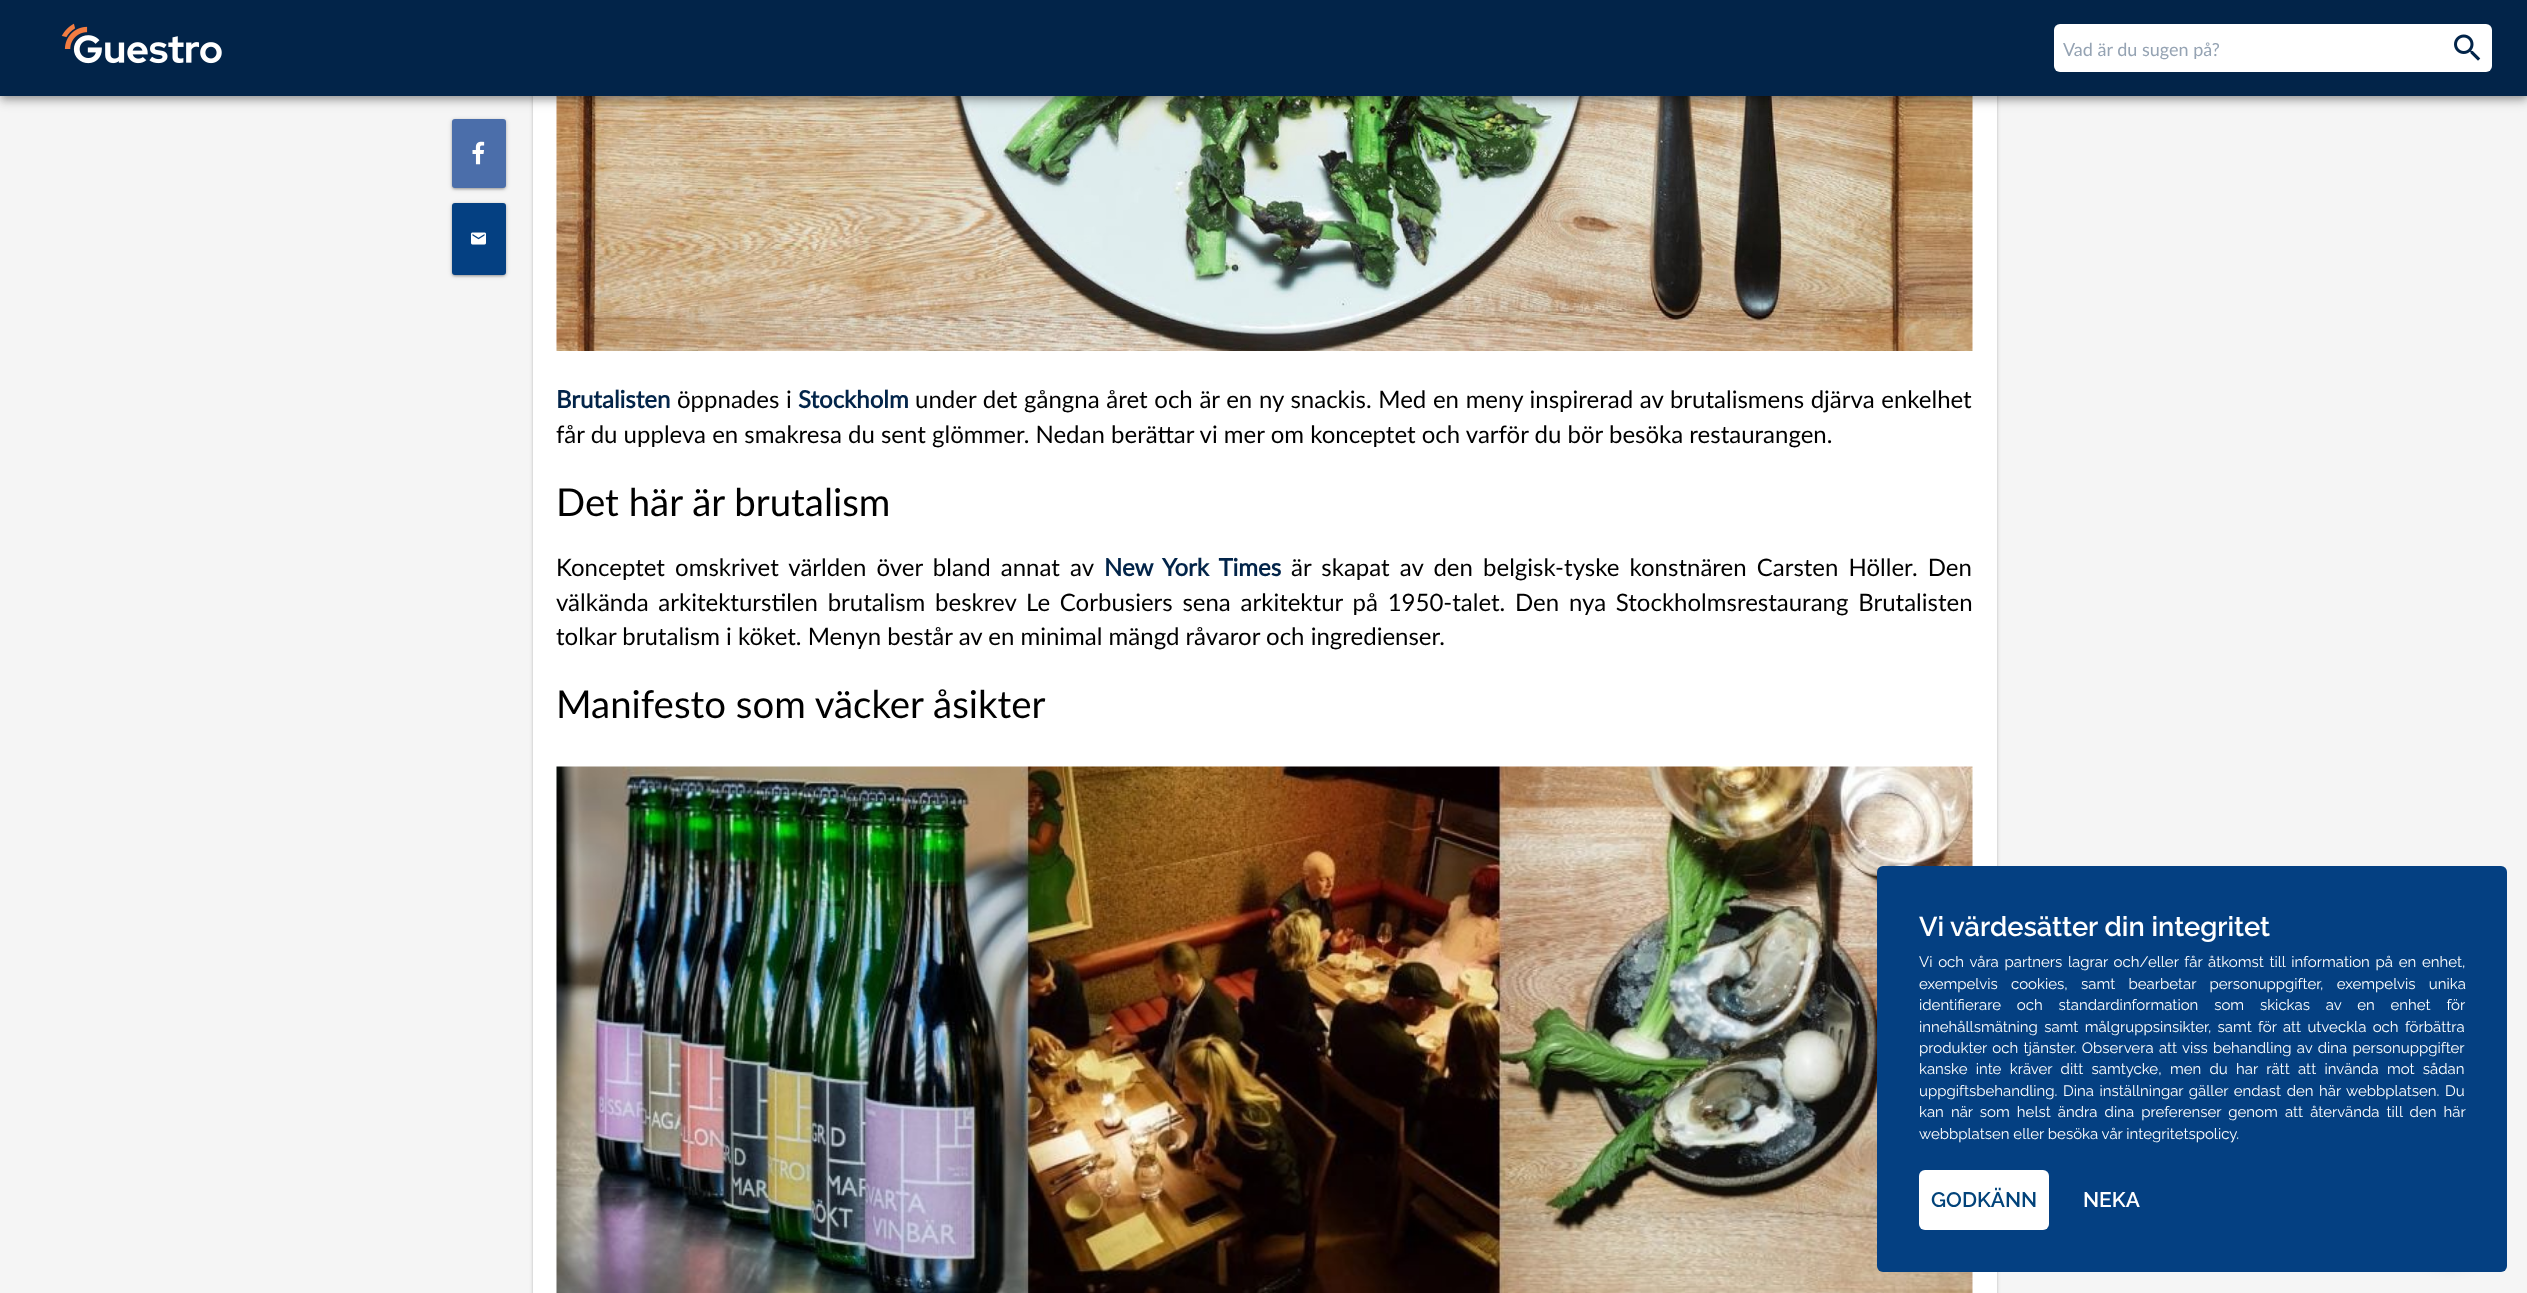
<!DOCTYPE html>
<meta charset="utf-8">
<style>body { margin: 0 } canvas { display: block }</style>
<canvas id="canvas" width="2527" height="1293"></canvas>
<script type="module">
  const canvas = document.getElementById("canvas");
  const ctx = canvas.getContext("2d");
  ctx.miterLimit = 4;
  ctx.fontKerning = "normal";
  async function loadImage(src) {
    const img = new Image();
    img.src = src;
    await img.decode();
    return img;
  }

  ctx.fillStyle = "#f5f5f5";
  ctx.fillRect(0, 0, 2527, 1293);
  ctx.fillStyle = "rgba(0, 0, 0, 0.12)";
  ctx.filter = "blur(2px)";
  ctx.beginPath();
  ctx.roundRect(533, -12, 1464, 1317, 6);
  ctx.fill();
  ctx.filter = "none";
  ctx.fillStyle = "rgba(0, 0, 0, 0.14)";
  ctx.filter = "blur(1px)";
  ctx.beginPath();
  ctx.roundRect(533, -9, 1464, 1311, 6);
  ctx.fill();
  ctx.filter = "none";
  ctx.fillStyle = "#ffffff";
  ctx.fillRect(533, 96, 1464, 1197);
  ctx.fillStyle = "rgba(0, 0, 0, 0.12)";
  ctx.filter = "blur(1px)";
  ctx.beginPath();
  ctx.roundRect(453, 123, 51, 66, 1.5);
  ctx.fill();
  ctx.filter = "none";
  ctx.fillStyle = "rgba(0, 0, 0, 0.14)";
  ctx.filter = "blur(1px)";
  ctx.beginPath();
  ctx.roundRect(452, 120, 54, 69, 3);
  ctx.fill();
  ctx.filter = "none";
  ctx.fillStyle = "rgba(0, 0, 0, 0.2)";
  ctx.filter = "blur(2px)";
  ctx.beginPath();
  ctx.roundRect(452, 120, 54, 69, 3);
  ctx.fill();
  ctx.filter = "none";
  ctx.fillStyle = "#4b6eaa";
  ctx.beginPath();
  ctx.roundRect(453.5, 120.5, 51, 66, 1.5);
  ctx.fill();
  ctx.strokeStyle = "#4b6eaa";
  ctx.lineWidth = 3;
  ctx.stroke();
  ctx.drawImage(await loadImage("img5.png"), 556, 96, 1417, 255);
  ctx.fillStyle = "rgba(0, 0, 0, 0.12)";
  ctx.filter = "blur(7.5px)";
  ctx.beginPath();
  ctx.rect(0, 2, 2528, 96);
  ctx.fill();
  ctx.filter = "none";
  ctx.fillStyle = "rgba(0, 0, 0, 0.14)";
  ctx.filter = "blur(4px)";
  ctx.beginPath();
  ctx.rect(0, 6, 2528, 96);
  ctx.fill();
  ctx.filter = "none";
  ctx.fillStyle = "rgba(0, 0, 0, 0.2)";
  ctx.filter = "blur(3px)";
  ctx.beginPath();
  ctx.rect(2, 5, 2524, 93);
  ctx.fill();
  ctx.filter = "none";
  ctx.fillStyle = "#022449";
  ctx.fillRect(0, 0, 2527, 96);
  ctx.drawImage(await loadImage("img1.png"), 61, 23, 161, 41);
  ctx.fillStyle = "#ffffff";
  ctx.beginPath();
  ctx.roundRect(2054, 24, 390, 48, [6, 0, 0, 6]);
  ctx.fill();
  ctx.font = "18px Lato";
  ctx.fillStyle = "#95a3b3";
  ctx.fillText("Vad är du sugen på?", 2063, 56);
  ctx.fillStyle = "#ffffff";
  ctx.beginPath();
  ctx.roundRect(2444, 24, 48, 48, [0, 6, 6, 0]);
  ctx.fill();
  ctx.drawImage(await loadImage("img2.png"), 2454, 34, 27, 27);
  ctx.drawImage(await loadImage("img3.png"), 472, 141, 13, 24);
  ctx.fillStyle = "rgba(0, 0, 0, 0.12)";
  ctx.filter = "blur(1px)";
  ctx.beginPath();
  ctx.roundRect(453, 207, 51, 69, 1.5);
  ctx.fill();
  ctx.filter = "none";
  ctx.fillStyle = "rgba(0, 0, 0, 0.14)";
  ctx.filter = "blur(1px)";
  ctx.beginPath();
  ctx.roundRect(452, 204, 54, 72, 3);
  ctx.fill();
  ctx.filter = "none";
  ctx.fillStyle = "rgba(0, 0, 0, 0.2)";
  ctx.filter = "blur(2px)";
  ctx.beginPath();
  ctx.roundRect(452, 204, 54, 72, 3);
  ctx.fill();
  ctx.filter = "none";
  ctx.fillStyle = "#044082";
  ctx.beginPath();
  ctx.roundRect(453.5, 204.5, 51, 69, 1.5);
  ctx.fill();
  ctx.strokeStyle = "#044082";
  ctx.stroke();
  ctx.drawImage(await loadImage("img4.png"), 471, 232, 15, 13);
  ctx.font = "bold 24px Lato";
  ctx.fillStyle = "#022449";
  ctx.fillText("Brutalisten", 556, 408);
  ctx.wordSpacing = "0.5px";
  ctx.font = "24px Lato";
  ctx.fillStyle = "#000000";
  ctx.fillText("öppnades i", 677, 408);
  ctx.wordSpacing = "0px";
  ctx.font = "bold 24px Lato";
  ctx.fillStyle = "#022449";
  ctx.fillText("Stockholm", 798, 408);
  ctx.wordSpacing = "0.5px";
  ctx.font = "24px Lato";
  ctx.fillStyle = "#000000";
  ctx.fillText("under det gångna året och är en ny snackis. Med en meny inspirerad av brutalismens djärva enkelhet", 915, 408);
  ctx.wordSpacing = "0px";
  ctx.fillText("får du uppleva en smakresa du sent glömmer. Nedan berättar vi mer om konceptet och varför du bör besöka restaurangen.", 556, 443);
  ctx.font = "38.4px Lato";
  ctx.fillText("Det här är brutalism", 556, 516);
  ctx.wordSpacing = "4px";
  ctx.font = "24px Lato";
  ctx.fillText("Konceptet omskrivet världen över bland annat av", 556, 576);
  ctx.font = "bold 24px Lato";
  ctx.fillStyle = "#022449";
  ctx.fillText("New York Times", 1104, 576);
  ctx.font = "24px Lato";
  ctx.fillStyle = "#000000";
  ctx.fillText("är skapat av den belgisk-tyske konstnären Carsten Höller. Den", 1291, 576);
  ctx.wordSpacing = "3.6px";
  ctx.fillText("välkända arkitekturstilen brutalism beskrev Le Corbusiers sena arkitektur på 1950-talet. Den nya Stockholmsrestaurang Brutalisten", 556, 611);
  ctx.wordSpacing = "0px";
  ctx.fillText("tolkar brutalism i köket. Menyn består av en minimal mängd råvaror och ingredienser.", 556, 645);
  ctx.font = "38.4px Lato";
  ctx.fillText("Manifesto som väcker åsikter", 556, 718);
  ctx.drawImage(await loadImage("img6.png"), 556, 766, 1417, 527);
  ctx.fillStyle = "rgba(0, 0, 0, 0.14)";
  ctx.filter = "blur(7.5px)";
  ctx.beginPath();
  ctx.roundRect(2408, 1182, 84, 84, 42);
  ctx.fill();
  ctx.filter = "none";
  ctx.fillStyle = "#044082";
  ctx.beginPath();
  ctx.roundRect(1877, 866, 630, 406, 6);
  ctx.fill();
  ctx.font = "600 27.25px Raleway";
  ctx.fillStyle = "#ffffff";
  ctx.fillText("Vi värdesätter din integritet", 1919, 936);
  ctx.wordSpacing = "1.9px";
  ctx.font = "15px Raleway";
  ctx.fillText("Vi och våra partners lagrar och/eller får åtkomst till information på en enhet,", 1919, 967);
  ctx.wordSpacing = "9.5px";
  ctx.fillText("exempelvis cookies, samt bearbetar personuppgifter, exempelvis unika", 1919, 989);
  ctx.wordSpacing = "12px";
  ctx.fillText("identifierare och standardinformation som skickas av en enhet för", 1919, 1010);
  ctx.wordSpacing = "2.5px";
  ctx.fillText("innehållsmätning samt målgruppsinsikter, samt för att utveckla och förbättra", 1919, 1032);
  ctx.wordSpacing = "1.5px";
  ctx.fillText("produkter och tjänster. Observera att viss behandling av dina personuppgifter", 1919, 1053);
  ctx.wordSpacing = "4.5px";
  ctx.fillText("kanske inte kräver ditt samtycke, men du har rätt att invända mot sådan", 1919, 1074);
  ctx.wordSpacing = "1.75px";
  ctx.fillText("uppgiftsbehandling. Dina inställningar gäller endast den här webbplatsen. Du", 1919, 1096);
  ctx.wordSpacing = "3.25px";
  ctx.fillText("kan när som helst ändra dina preferenser genom att återvända till den här", 1919, 1117);
  ctx.wordSpacing = "0px";
  ctx.fillText("webbplatsen eller besöka vår integritetspolicy.", 1919, 1139);
  ctx.beginPath();
  ctx.roundRect(1919, 1170, 130, 60, 6);
  ctx.fill();
  ctx.font = "600 21px Raleway";
  ctx.fillStyle = "#02437a";
  ctx.fillText("GODKÄNN", 1931, 1207);
  ctx.fillStyle = "#ffffff";
  ctx.fillText("NEKA", 2083, 1207);
</script>
